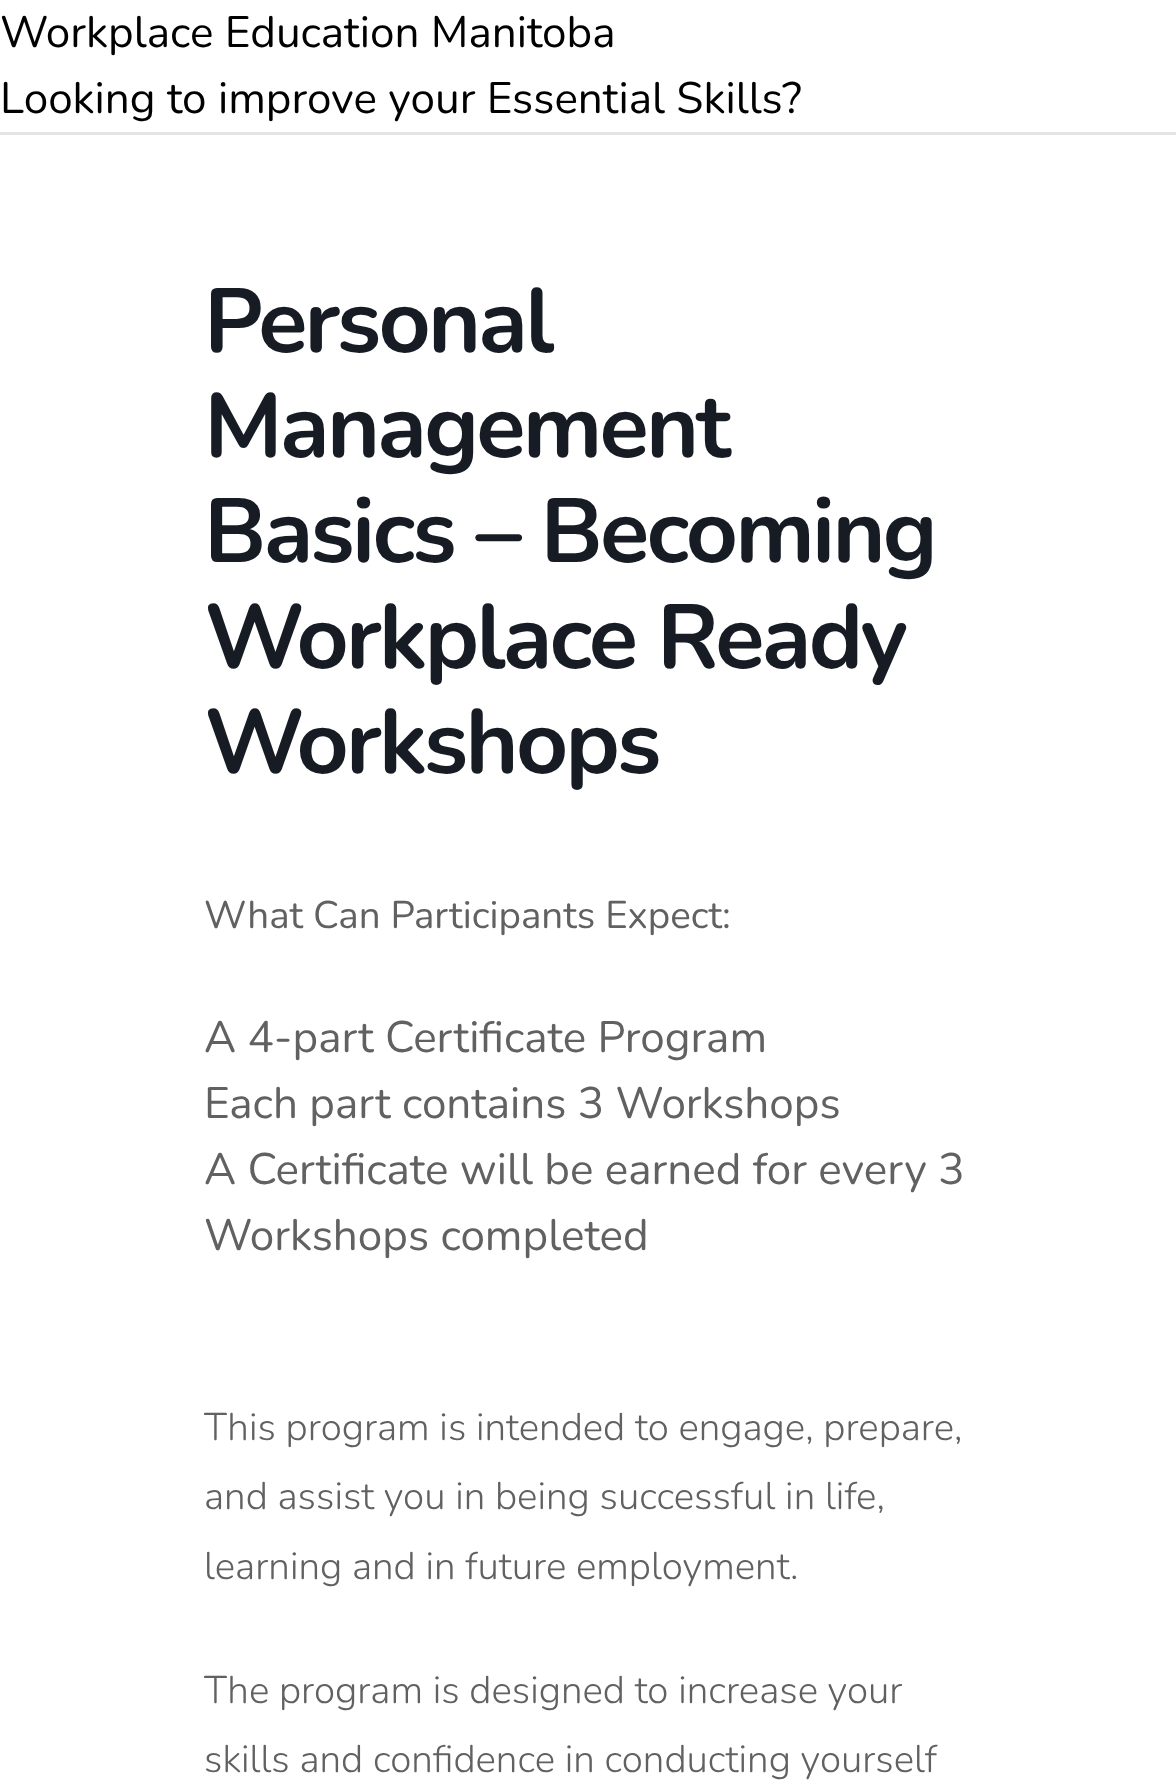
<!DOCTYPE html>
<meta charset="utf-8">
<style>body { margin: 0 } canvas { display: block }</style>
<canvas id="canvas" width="1176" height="1783"></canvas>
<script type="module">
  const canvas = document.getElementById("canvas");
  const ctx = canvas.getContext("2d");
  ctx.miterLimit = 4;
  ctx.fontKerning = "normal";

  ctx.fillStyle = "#ffffff";
  ctx.fillRect(0, 0, 1176, 1783);
  ctx.font = "44px Nunito";
  ctx.fillStyle = "#000000";
  ctx.fillText("Workplace Education Manitoba", 0, 47);
  ctx.fillText("Looking to improve your Essential Skills?", 0, 113);
  ctx.fillStyle = "#e5e5e5";
  ctx.fillRect(0, 132, 1176, 3);
  ctx.letterSpacing = "-2.75px";
  ctx.font = "bold 90.75px Nunito";
  ctx.fillStyle = "#171c24";
  ctx.fillText("Personal", 204, 352);
  ctx.fillText("Management", 204, 457);
  ctx.fillText("Basics – Becoming", 204, 562);
  ctx.fillText("Workplace Ready", 204, 668);
  ctx.fillText("Workshops", 204, 773);
  ctx.letterSpacing = "0px";
  ctx.font = "38.5px Nunito";
  ctx.fillStyle = "#616161";
  ctx.fillText("What Can Participants Expect:", 204, 928);
  ctx.font = "44px Nunito";
  ctx.fillText("A 4-part Certificate Program", 204, 1052);
  ctx.fillText("Each part contains 3 Workshops", 204, 1118);
  ctx.fillText("A Certificate will be earned for every 3", 204, 1184);
  ctx.fillText("Workshops completed", 204, 1250);
  ctx.font = "300 38.5px Nunito";
  ctx.fillText("This program is intended to engage, prepare,", 204, 1440);
  ctx.fillText("and assist you in being successful in life,", 204, 1509);
  ctx.fillText("learning and in future employment.", 204, 1579);
  ctx.fillText("The program is designed to increase your", 204, 1703);
  ctx.fillText("skills and confidence in conducting yourself", 204, 1772);
</script>
